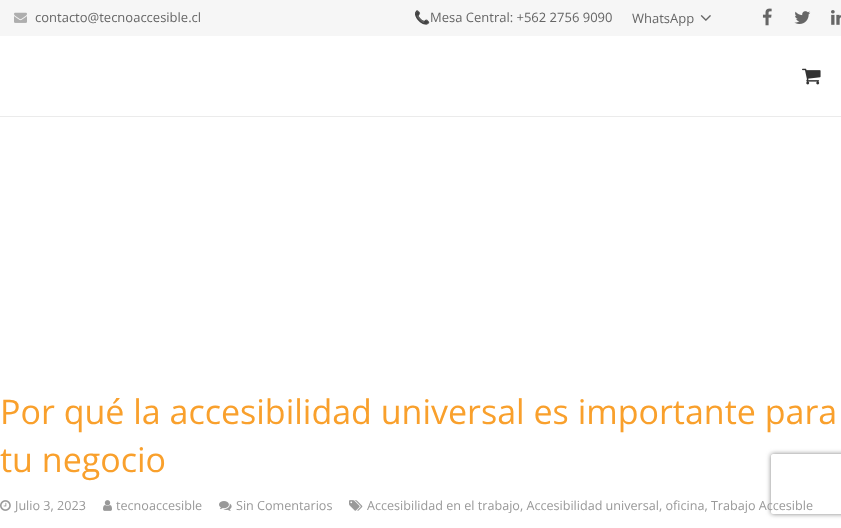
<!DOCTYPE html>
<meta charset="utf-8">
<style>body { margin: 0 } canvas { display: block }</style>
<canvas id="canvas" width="841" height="528"></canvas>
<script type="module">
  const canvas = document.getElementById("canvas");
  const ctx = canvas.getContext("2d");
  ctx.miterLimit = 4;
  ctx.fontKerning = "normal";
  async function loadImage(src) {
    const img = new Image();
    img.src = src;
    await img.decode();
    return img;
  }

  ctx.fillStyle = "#ffffff";
  ctx.fillRect(0, 0, 841, 528);
  ctx.fillStyle = "#f6f6f6";
  ctx.fillRect(0, 0, 841, 36);
  ctx.drawImage(await loadImage("img1.png"), 14, 12, 13, 11);
  ctx.font = "13px Open Sans";
  ctx.fillStyle = "#666666";
  ctx.fillText("contacto@tecnoaccesible.cl", 35, 22);
  ctx.font = "13px Noto Color Emoji";
  ctx.fillText("📞", 414, 22);
  ctx.font = "13px Open Sans";
  ctx.fillText("Mesa Central: +562 2756 9090", 430, 22);
  ctx.fillText("WhatsApp", 632, 23);
  ctx.drawImage(await loadImage("img2.png"), 700, 15, 11, 6);
  ctx.drawImage(await loadImage("img3.png"), 762, 8, 10, 18);
  ctx.drawImage(await loadImage("img4.png"), 794, 11, 17, 13);
  ctx.drawImage(await loadImage("img5.png"), 831, 10, 10, 15);
  ctx.fillStyle = "#ebebeb";
  ctx.fillRect(0, 116, 841, 1);
  ctx.drawImage(await loadImage("img6.png"), 802, 68, 19, 17);
  ctx.font = "34px Open Sans";
  ctx.fillStyle = "#f9a02c";
  ctx.fillText("Por qué la accesibilidad universal es importante para", 0, 424);
  ctx.fillText("tu negocio", 0, 472);
  ctx.drawImage(await loadImage("img7.png"), 0, 500, 11, 11);
  ctx.font = "12.6px Open Sans";
  ctx.fillStyle = "#999999";
  ctx.fillText("Julio 3, 2023", 15, 510);
  ctx.drawImage(await loadImage("img8.png"), 103, 500, 9, 11);
  ctx.fillText("tecnoaccesible", 116, 510);
  ctx.drawImage(await loadImage("img9.png"), 219, 501, 13, 10);
  ctx.fillText("Sin Comentarios", 236, 510);
  ctx.drawImage(await loadImage("img10.png"), 349, 500, 14, 11);
  ctx.save();
  ctx.beginPath();
  ctx.moveTo(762, 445);
  ctx.lineTo(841, 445);
  ctx.lineTo(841, 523);
  ctx.lineTo(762, 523);
  ctx.closePath();
  ctx.moveTo(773, 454);
  ctx.lineTo(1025, 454);
  ctx.bezierCurveTo(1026, 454, 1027, 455, 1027, 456);
  ctx.lineTo(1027, 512);
  ctx.bezierCurveTo(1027, 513, 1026, 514, 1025, 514);
  ctx.lineTo(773, 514);
  ctx.bezierCurveTo(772, 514, 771, 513, 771, 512);
  ctx.lineTo(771, 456);
  ctx.bezierCurveTo(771, 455, 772, 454, 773, 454);
  ctx.closePath();
  ctx.clip("evenodd");
  ctx.fillStyle = "#808080";
  ctx.filter = "blur(2.5px)";
  ctx.beginPath();
  ctx.roundRect(771, 454, 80, 60, 2);
  ctx.fill();
  ctx.filter = "none";
  ctx.restore();
  ctx.fillText("Accesibilidad en el trabajo, Accesibilidad universal, oficina, Trabajo Accesible", 367, 510);
</script>
